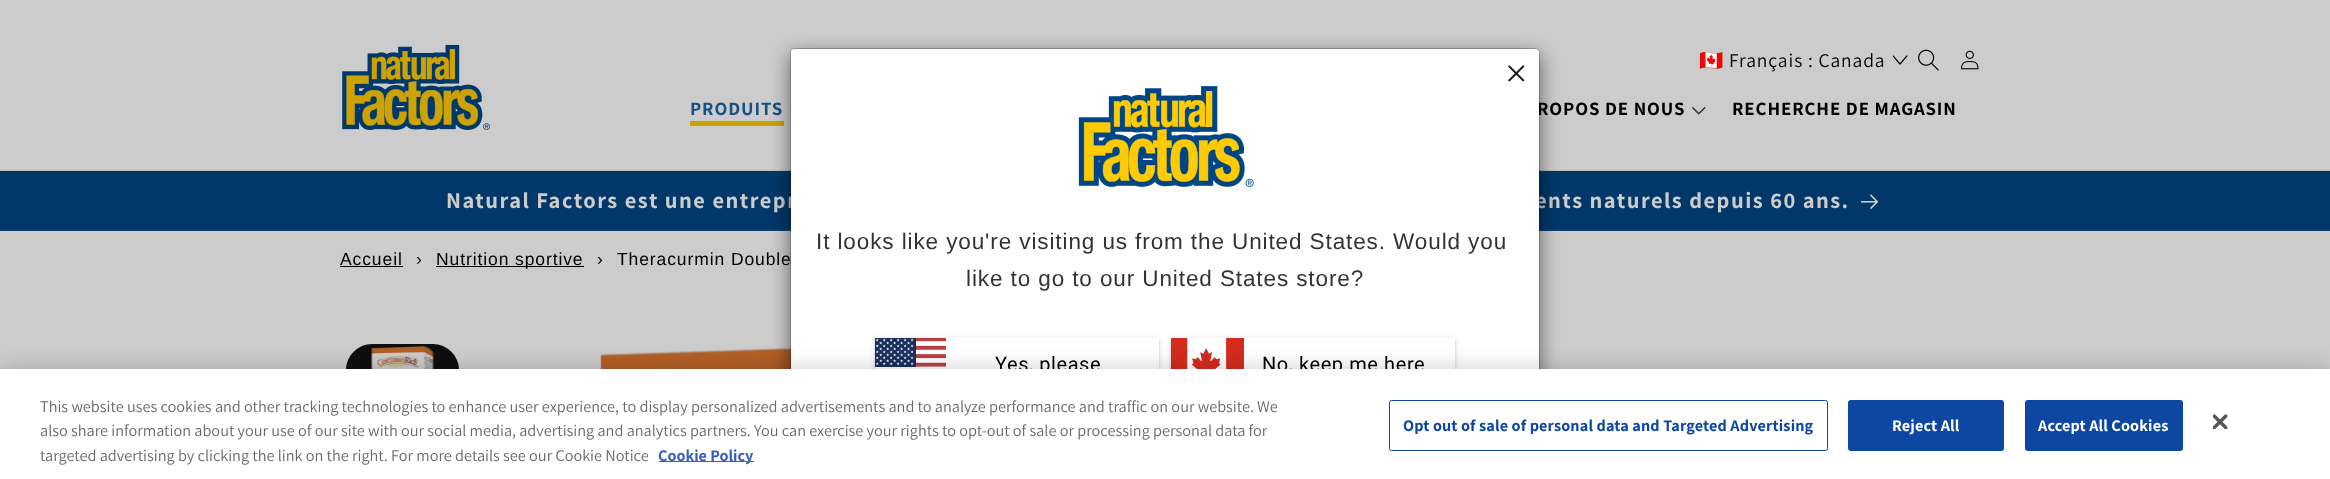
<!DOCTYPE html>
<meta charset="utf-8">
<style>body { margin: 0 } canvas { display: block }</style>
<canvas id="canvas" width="2330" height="479"></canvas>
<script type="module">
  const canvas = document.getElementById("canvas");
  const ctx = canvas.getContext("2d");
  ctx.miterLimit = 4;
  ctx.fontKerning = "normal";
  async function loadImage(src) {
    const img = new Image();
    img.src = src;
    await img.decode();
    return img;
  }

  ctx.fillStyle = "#cccccc";
  ctx.fillRect(0, 0, 2330, 479);
  ctx.fillStyle = "#bcbcbc";
  ctx.fillRect(0, 170, 2330, 1);
  ctx.drawImage(await loadImage("img1.png"), 342, 44, 148, 86);
  ctx.letterSpacing = "0.9px";
  ctx.font = "19.5px Noto Color Emoji";
  ctx.fillStyle = "#000000";
  ctx.fillText("🇨🇦", 1699, 67);
  ctx.font = "19.5px Assistant";
  ctx.fillText("Français : Canada", 1729, 67);
  ctx.drawImage(await loadImage("img2.png"), 1893, 55, 15, 10);
  ctx.drawImage(await loadImage("img3.png"), 1918, 49, 21, 22);
  ctx.drawImage(await loadImage("img4.png"), 1961, 50, 18, 20);
  ctx.fillStyle = "#cca100";
  ctx.fillRect(690, 121, 94, 5);
  ctx.font = "bold 18.9px Assistant";
  ctx.fillStyle = "#175184";
  ctx.fillText("PRODUITS", 690, 115);
  ctx.drawImage(await loadImage("img5.png"), 790, 107, 1, 1);
  ctx.fillStyle = "#000000";
  ctx.fillText("ROPOS DE NOUS", 1537, 115);
  ctx.drawImage(await loadImage("img6.png"), 1692, 107, 14, 8);
  ctx.fillText("RECHERCHE DE MAGASIN", 1732, 115);
  ctx.fillStyle = "#013869";
  ctx.fillRect(0, 171, 2330, 59);
  ctx.fillStyle = "#114471";
  ctx.fillRect(0, 230, 2330, 1);
  ctx.letterSpacing = "1.5px";
  ctx.font = "bold 22.5px Assistant";
  ctx.fillStyle = "#cccccc";
  ctx.fillText("Natural Factors est une entrepr", 446, 208);
  ctx.fillText("ents naturels depuis 60 ans.", 1535, 208);
  ctx.drawImage(await loadImage("img7.png"), 1861, 194, 18, 15);
  ctx.letterSpacing = "0.9px";
  ctx.font = "17.5px Liberation Sans";
  ctx.fillStyle = "#000000";
  ctx.fillText("Accueil", 340, 265);
  ctx.fillRect(340, 266, 63, 1);
  ctx.fillText("›", 416, 265);
  ctx.fillRect(436, 266, 148, 1);
  ctx.fillText("Nutrition sportive", 436, 265);
  ctx.fillText("›", 597, 265);
  ctx.fillText("Theracurmin Double", 617, 265);
  ctx.fillStyle = "#0e0e0e";
  ctx.beginPath();
  ctx.moveTo(372, 344);
  ctx.lineTo(433, 344);
  ctx.bezierCurveTo(447, 344, 459, 356, 459, 370);
  ctx.lineTo(459, 430);
  ctx.bezierCurveTo(459, 444, 447, 456, 433, 456);
  ctx.lineTo(372, 456);
  ctx.bezierCurveTo(358, 456, 346, 444, 346, 430);
  ctx.lineTo(346, 370);
  ctx.bezierCurveTo(346, 356, 358, 344, 372, 344);
  ctx.closePath();
  ctx.fill();
  ctx.drawImage(await loadImage("img8.png"), 370, 346, 64, 23);
  ctx.drawImage(await loadImage("img9.png"), 600, 347, 191, 22);
  ctx.fillStyle = "rgba(0, 0, 0, 0.5)";
  ctx.filter = "blur(9.5px)";
  ctx.beginPath();
  ctx.roundRect(790, 54, 750, 379, 5);
  ctx.fill();
  ctx.filter = "none";
  ctx.fillStyle = "#ffffff";
  ctx.beginPath();
  ctx.roundRect(791, 49, 748, 376, 4);
  ctx.fill();
  ctx.beginPath();
  ctx.roundRect(790.5, 48.5, 749, 377, 4.5);
  ctx.strokeStyle = "rgba(0, 0, 0, 0.2)";
  ctx.stroke();
  ctx.beginPath();
  ctx.roundRect(791, 49, 748, 161, [4, 4, 0, 0]);
  ctx.fill();
  ctx.drawImage(await loadImage("img10.png"), 1508, 65, 17, 17);
  ctx.drawImage(await loadImage("img11.png"), 1078, 86, 176, 101);
  ctx.font = "22.5px Liberation Sans";
  ctx.fillStyle = "#333333";
  ctx.fillText("It looks like you're visiting us from the United States. Would you", 816, 249);
  ctx.fillText("like to go to our United States store?", 966, 286);
  ctx.fillStyle = "rgba(0, 0, 0, 0.12)";
  ctx.filter = "blur(3px)";
  ctx.beginPath();
  ctx.rect(875, 339, 284, 55);
  ctx.fill();
  ctx.filter = "none";
  ctx.fillStyle = "rgba(0, 0, 0, 0.14)";
  ctx.filter = "blur(1px)";
  ctx.beginPath();
  ctx.rect(875, 340, 284, 55);
  ctx.fill();
  ctx.filter = "none";
  ctx.fillStyle = "#ffffff";
  ctx.fillRect(916, 338, 243, 31);
  ctx.drawImage(await loadImage("img12.png"), 875, 338, 71, 31);
  ctx.letterSpacing = "0.6px";
  ctx.font = "20px Roboto";
  ctx.fillStyle = "#000000";
  ctx.fillText("Yes, please", 995, 371);
  ctx.fillStyle = "rgba(0, 0, 0, 0.12)";
  ctx.filter = "blur(3px)";
  ctx.beginPath();
  ctx.rect(1171, 339, 284, 55);
  ctx.fill();
  ctx.filter = "none";
  ctx.fillStyle = "rgba(0, 0, 0, 0.14)";
  ctx.filter = "blur(1px)";
  ctx.beginPath();
  ctx.rect(1171, 340, 284, 55);
  ctx.fill();
  ctx.filter = "none";
  ctx.fillStyle = "#ffffff";
  ctx.fillRect(1226, 338, 229, 31);
  ctx.drawImage(await loadImage("img13.png"), 1171, 338, 73, 31);
  ctx.fillStyle = "#000000";
  ctx.fillText("No, keep me here", 1262, 371);
  ctx.fillStyle = "rgba(0, 0, 0, 0.2)";
  ctx.filter = "blur(11px)";
  ctx.beginPath();
  ctx.rect(0, 369, 2330, 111);
  ctx.fill();
  ctx.filter = "none";
  ctx.fillStyle = "#ffffff";
  ctx.fillRect(0, 369, 2330, 110);
  ctx.letterSpacing = "0px";
  ctx.font = "16.25px Assistant";
  ctx.fillStyle = "#696969";
  ctx.fillText("This website uses cookies and other tracking technologies to enhance user experience, to display personalized advertisements and to analyze performance and traffic on our website. We", 40, 412);
  ctx.fillText("also share information about your use of our site with our social media, advertising and analytics partners. You can exercise your rights to opt-out of sale or processing personal data for", 40, 436);
  ctx.fillText("targeted advertising by clicking the link on the right. For more details see our Cookie Notice", 40, 461);
  ctx.fillStyle = "#3860be";
  ctx.fillRect(659, 461, 95, 1);
  ctx.font = "bold 16.25px Assistant";
  ctx.fillText("Cookie Policy", 658, 461);
  ctx.beginPath();
  ctx.roundRect(1389.5, 400.5, 438, 50, 2);
  ctx.strokeStyle = "#0d47a1";
  ctx.stroke();
  ctx.letterSpacing = "0.15px";
  ctx.fillStyle = "#0d47a1";
  ctx.fillText("Opt out of sale of personal data and Targeted Advertising", 1403, 431);
  ctx.beginPath();
  ctx.roundRect(1848.5, 400.5, 155, 50, 2);
  ctx.fill();
  ctx.stroke();
  ctx.fillStyle = "#ffffff";
  ctx.fillText("Reject All", 1892, 431);
  ctx.fillStyle = "#0d47a1";
  ctx.beginPath();
  ctx.roundRect(2025.5, 400.5, 157, 50, 2);
  ctx.fill();
  ctx.stroke();
  ctx.fillStyle = "#ffffff";
  ctx.fillText("Accept All Cookies", 2038, 431);
  ctx.drawImage(await loadImage("img14.png"), 2213, 414, 15, 15);
</script>
